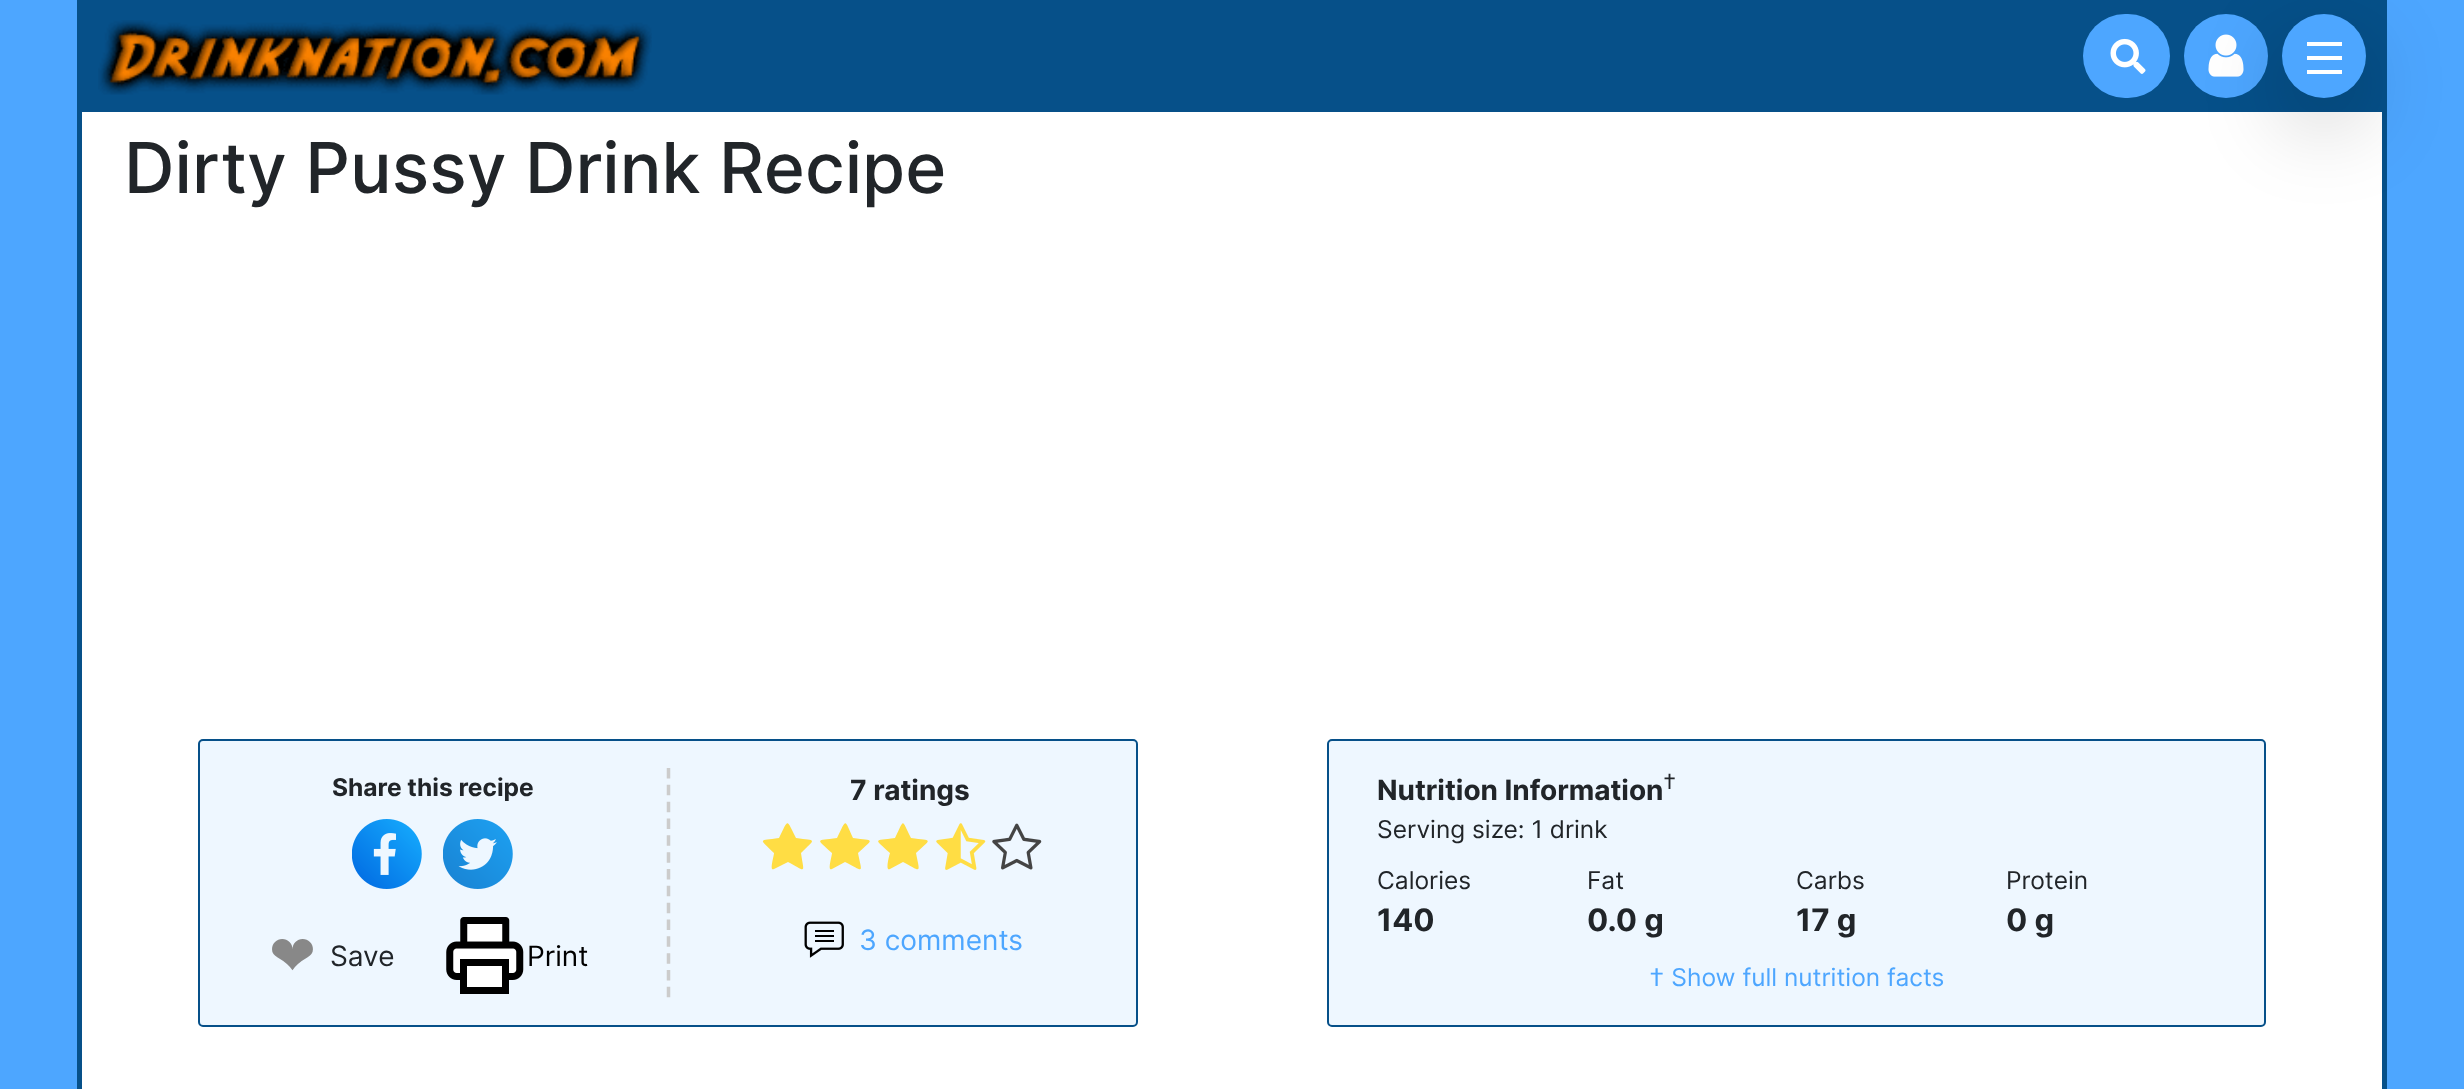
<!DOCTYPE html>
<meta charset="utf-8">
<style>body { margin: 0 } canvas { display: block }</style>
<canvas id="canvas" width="2464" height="1089"></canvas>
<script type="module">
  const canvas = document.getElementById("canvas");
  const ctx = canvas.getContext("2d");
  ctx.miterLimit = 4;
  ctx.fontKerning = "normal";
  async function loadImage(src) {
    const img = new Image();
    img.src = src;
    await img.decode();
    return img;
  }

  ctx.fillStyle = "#4da6ff";
  ctx.fillRect(0, 0, 2464, 1089);
  ctx.fillStyle = "#065089";
  ctx.fillRect(77, 0, 2310, 112);
  ctx.fillStyle = "#4da6ff";
  ctx.beginPath();
  ctx.roundRect(2083, 14, 87, 84, 42);
  ctx.fill();
  ctx.drawImage(await loadImage("img1.png"), 2110, 38, 36, 36);
  ctx.beginPath();
  ctx.arc(2226, 56, 42, 0, Math.PI * 2);
  ctx.fill();
  ctx.drawImage(await loadImage("img3.png"), 2208, 34, 36, 43);
  ctx.fillStyle = "#ffffff";
  ctx.fillRect(82, 112, 2300, 977);
  ctx.fillStyle = "#065089";
  ctx.fillRect(2382, 112, 5, 977);
  ctx.fillStyle = "rgba(0, 0, 0, 0.2)";
  ctx.filter = "blur(42px)";
  ctx.beginPath();
  ctx.roundRect(2282, 42, 84, 84, 42);
  ctx.fill();
  ctx.filter = "none";
  ctx.fillStyle = "#4da6ff";
  ctx.beginPath();
  ctx.arc(2324, 56, 42, 0, Math.PI * 2);
  ctx.fill();
  ctx.fillStyle = "#ffffff";
  ctx.fillRect(2307, 56, 35, 4);
  ctx.fillRect(2307, 42, 35, 4);
  ctx.fillRect(2307, 70, 35, 4);
  ctx.drawImage(await loadImage("img2.png"), 98, 20, 554, 75);
  ctx.fillStyle = "#065089";
  ctx.fillRect(77, 112, 5, 977);
  ctx.font = "500 70px Inter";
  ctx.fillStyle = "#212529";
  ctx.fillText("Dirty Pussy Drink Recipe", 124, 193);
  ctx.fillStyle = "#eef7ff";
  ctx.beginPath();
  ctx.roundRect(199, 740, 938, 286, 4);
  ctx.fill();
  ctx.strokeStyle = "#065089";
  ctx.lineWidth = 2;
  ctx.stroke();
  ctx.beginPath();
  ctx.moveTo(668.5, 768);
  ctx.lineTo(668.5, 997.5);
  ctx.strokeStyle = "#cccccc";
  ctx.lineWidth = 3.5;
  ctx.setLineDash([10.5, 6.33]);
  ctx.stroke();
  ctx.font = "bold 24.5px Inter";
  ctx.fillStyle = "#212529";
  ctx.fillText("Share this recipe", 332, 796);
  ctx.drawImage(await loadImage("img4.png"), 352, 819, 70, 70);
  ctx.drawImage(await loadImage("img5.png"), 443, 819, 70, 70);
  ctx.font = "56px DejaVu Sans";
  ctx.fillStyle = "#888888";
  ctx.fillText("❤", 269, 975);
  ctx.font = "28px Inter";
  ctx.fillStyle = "#212529";
  ctx.fillText("Save", 330, 966);
  ctx.drawImage(await loadImage("img6.png"), 446, 917, 78, 77);
  ctx.fillStyle = "#000000";
  ctx.fillText("Print", 527, 966);
  ctx.font = "bold 28px Inter";
  ctx.fillStyle = "#212529";
  ctx.fillText("7 ratings", 850, 800);
  ctx.fillStyle = "#ffdd44";
  ctx.beginPath();
  ctx.moveTo(774, 869);
  ctx.bezierCurveTo(769, 872, 774, 856, 774, 853);
  ctx.bezierCurveTo(759, 838, 758, 841, 779, 838);
  ctx.bezierCurveTo(789, 818, 786, 819, 796, 838);
  ctx.bezierCurveTo(817, 841, 816, 838, 801, 853);
  ctx.bezierCurveTo(804, 874, 807, 872, 788, 862);
  ctx.closePath();
  ctx.fill();
  ctx.beginPath();
  ctx.moveTo(832, 869);
  ctx.bezierCurveTo(827, 872, 832, 856, 832, 853);
  ctx.bezierCurveTo(816, 838, 815, 841, 837, 838);
  ctx.bezierCurveTo(847, 818, 844, 819, 853, 838);
  ctx.bezierCurveTo(875, 841, 874, 838, 858, 853);
  ctx.bezierCurveTo(862, 874, 865, 872, 845, 862);
  ctx.closePath();
  ctx.fill();
  ctx.beginPath();
  ctx.moveTo(890, 869);
  ctx.bezierCurveTo(885, 872, 889, 856, 890, 853);
  ctx.bezierCurveTo(874, 838, 873, 841, 895, 838);
  ctx.bezierCurveTo(905, 818, 901, 819, 911, 838);
  ctx.bezierCurveTo(933, 841, 932, 838, 916, 853);
  ctx.bezierCurveTo(920, 874, 922, 872, 903, 862);
  ctx.closePath();
  ctx.fill();
  ctx.drawImage(await loadImage("img7.png"), 936, 823, 50, 47);
  ctx.drawImage(await loadImage("img8.png"), 992, 823, 50, 47);
  ctx.drawImage(await loadImage("img9.png"), 804, 921, 40, 37);
  ctx.font = "28px Inter";
  ctx.fillStyle = "#4da6ff";
  ctx.fillText("3 comments", 859, 950);
  ctx.fillStyle = "#eef7ff";
  ctx.beginPath();
  ctx.roundRect(1328, 740, 937, 286, 4);
  ctx.fill();
  ctx.strokeStyle = "#065089";
  ctx.lineWidth = 2;
  ctx.setLineDash([]);
  ctx.stroke();
  ctx.font = "bold 28px Inter";
  ctx.fillStyle = "#212529";
  ctx.fillText("Nutrition Information", 1377, 800);
  ctx.font = "21px Inter";
  ctx.fillText("†", 1663, 789);
  ctx.font = "24.5px Inter";
  ctx.fillText("Serving size: 1 drink", 1377, 838);
  ctx.fillText("Calories", 1377, 889);
  ctx.font = "bold 31px Inter";
  ctx.fillText("140", 1377, 931);
  ctx.font = "24.5px Inter";
  ctx.fillText("Fat", 1587, 889);
  ctx.font = "bold 31px Inter";
  ctx.fillText("0.0 g", 1587, 931);
  ctx.font = "24.5px Inter";
  ctx.fillText("Carbs", 1796, 889);
  ctx.font = "bold 31px Inter";
  ctx.fillText("17 g", 1796, 931);
  ctx.font = "24.5px Inter";
  ctx.fillText("Protein", 2006, 889);
  ctx.font = "bold 31px Inter";
  ctx.fillText("0 g", 2006, 931);
  ctx.font = "24.5px Inter";
  ctx.fillStyle = "#4da6ff";
  ctx.fillText("† Show full nutrition facts", 1649, 986);
</script>
